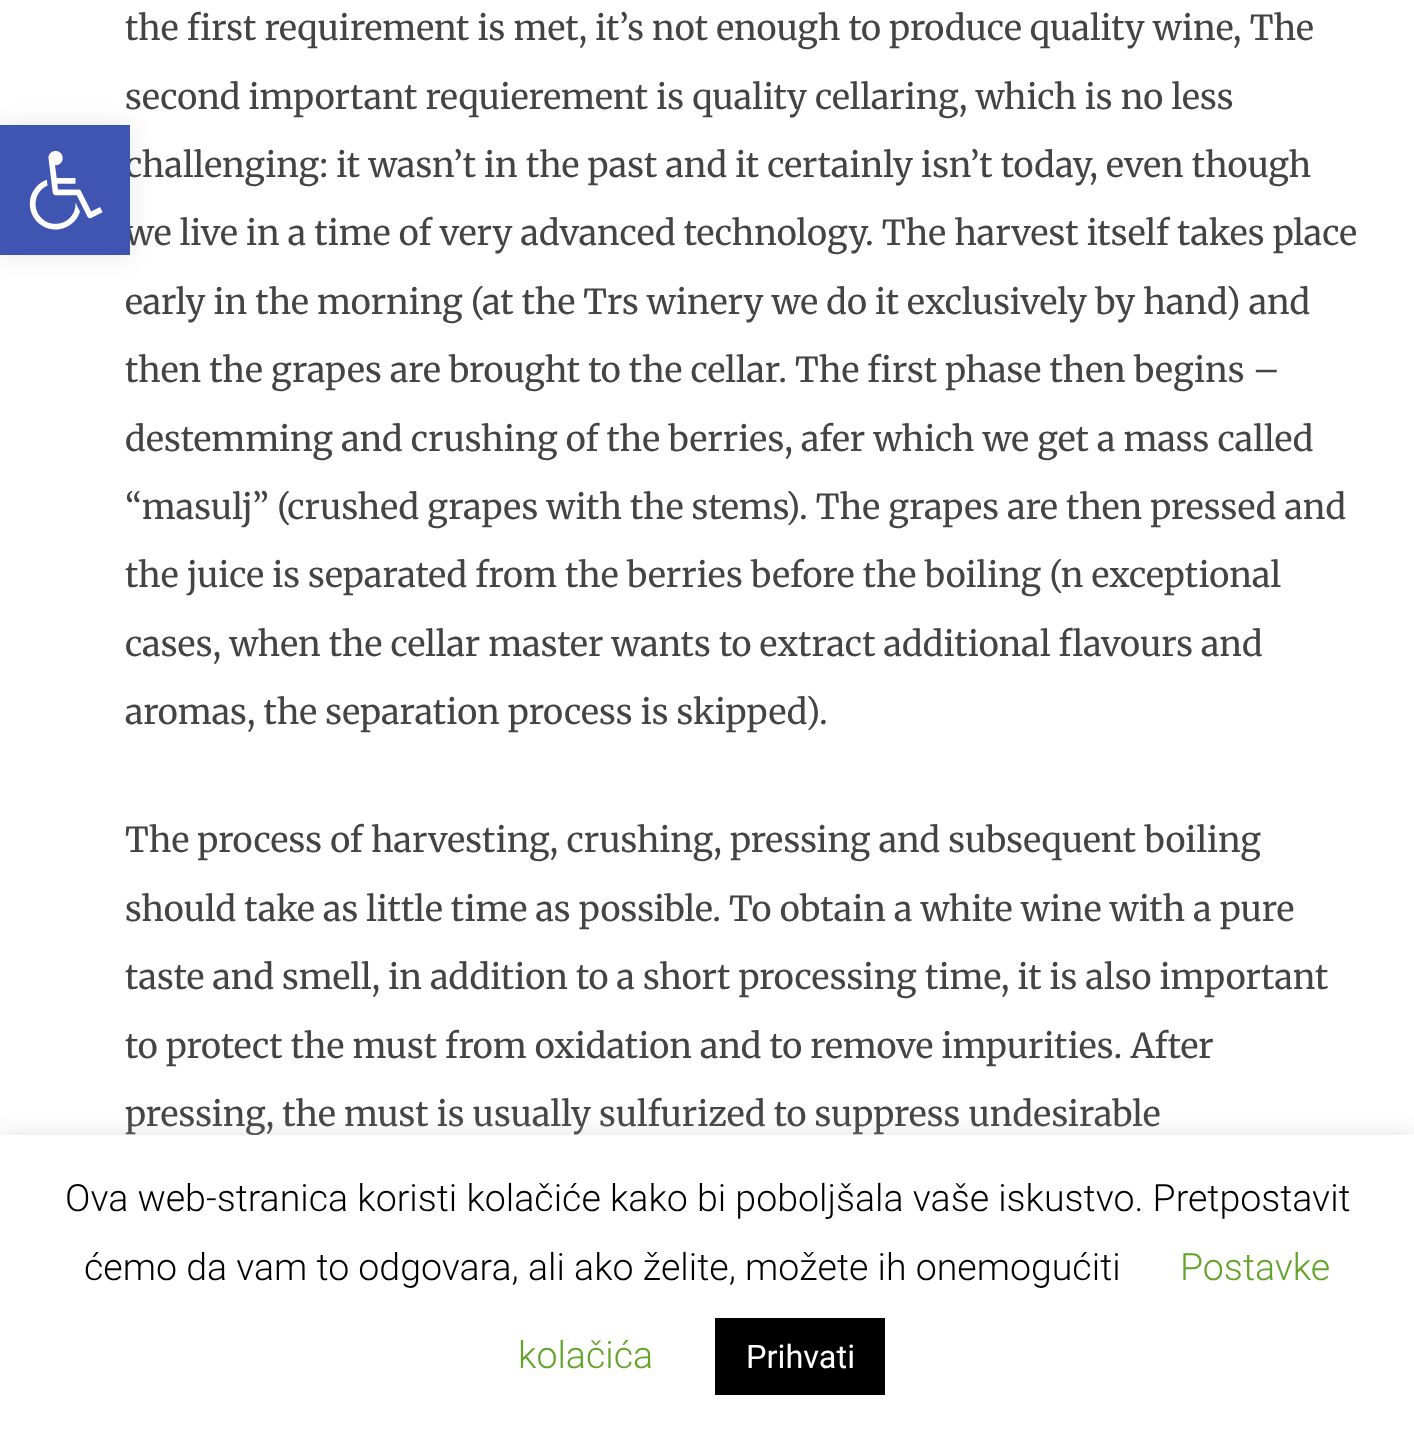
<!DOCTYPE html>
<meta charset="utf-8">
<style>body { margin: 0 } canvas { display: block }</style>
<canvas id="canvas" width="1414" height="1437"></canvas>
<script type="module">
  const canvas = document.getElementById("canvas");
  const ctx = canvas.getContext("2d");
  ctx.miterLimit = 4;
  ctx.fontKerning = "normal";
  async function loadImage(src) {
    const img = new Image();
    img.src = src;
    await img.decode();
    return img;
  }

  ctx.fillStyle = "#ffffff";
  ctx.fillRect(0, 0, 1414, 1437);
  ctx.fillStyle = "rgba(0, 0, 0, 0.1)";
  ctx.filter = "blur(12.5px)";
  ctx.beginPath();
  ctx.rect(0, 125, 130, 130);
  ctx.fill();
  ctx.filter = "none";
  ctx.font = "34.2px Merriweather";
  ctx.fillStyle = "#444444";
  ctx.fillText("challenging: it wasn’t in the past and it certainly isn’t today, even though", 125, 177);
  ctx.fillText("we live in a time of very advanced technology. The harvest itself takes place", 125, 245);
  ctx.fillStyle = "#4054b2";
  ctx.fillRect(0, 125, 130, 130);
  ctx.drawImage(await loadImage("img1.png"), 29, 151, 74, 79);
  ctx.fillStyle = "#444444";
  ctx.fillText("the first requirement is met, it’s not enough to produce quality wine, The", 125, 40);
  ctx.fillText("second important requierement is quality cellaring, which is no less", 125, 109);
  ctx.fillText("early in the morning (at the Trs winery we do it exclusively by hand) and", 125, 314);
  ctx.fillText("then the grapes are brought to the cellar. The first phase then begins –", 125, 382);
  ctx.fillText("destemming and crushing of the berries, afer which we get a mass called", 125, 451);
  ctx.fillText("“masulj” (crushed grapes with the stems). The grapes are then pressed and", 125, 519);
  ctx.fillText("the juice is separated from the berries before the boiling (n exceptional", 125, 587);
  ctx.fillText("cases, when the cellar master wants to extract additional flavours and", 125, 656);
  ctx.fillText("aromas, the separation process is skipped).", 125, 724);
  ctx.fillText("The process of harvesting, crushing, pressing and subsequent boiling", 125, 852);
  ctx.fillText("should take as little time as possible. To obtain a white wine with a pure", 125, 921);
  ctx.fillText("taste and smell, in addition to a short processing time, it is also important", 125, 989);
  ctx.fillText("to protect the must from oxidation and to remove impurities. After", 125, 1058);
  ctx.fillText("pressing, the must is usually sulfurized to suppress undesirable", 125, 1126);
  ctx.fillStyle = "rgba(172, 171, 171, 0.3)";
  ctx.filter = "blur(12.5px)";
  ctx.beginPath();
  ctx.rect(0, 1133, 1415, 302);
  ctx.fill();
  ctx.filter = "none";
  ctx.fillStyle = "#ffffff";
  ctx.fillRect(0, 1135, 1414, 302);
  ctx.font = "300 37.5px Roboto";
  ctx.fillStyle = "#000000";
  ctx.fillText("Ova web-stranica koristi kolačiće kako bi poboljšala vaše iskustvo. Pretpostavit", 65, 1211);
  ctx.fillText("ćemo da vam to odgovara, ali ako želite, možete ih onemogućiti", 84, 1280);
  ctx.fillStyle = "#62a329";
  ctx.fillText("Postavke", 1180, 1280);
  ctx.fillText("kolačića", 518, 1368);
  ctx.fillStyle = "#000000";
  ctx.fillRect(715, 1318, 170, 77);
  ctx.font = "32.5px Roboto";
  ctx.fillStyle = "#ffffff";
  ctx.fillText("Prihvati", 746, 1368);
</script>
